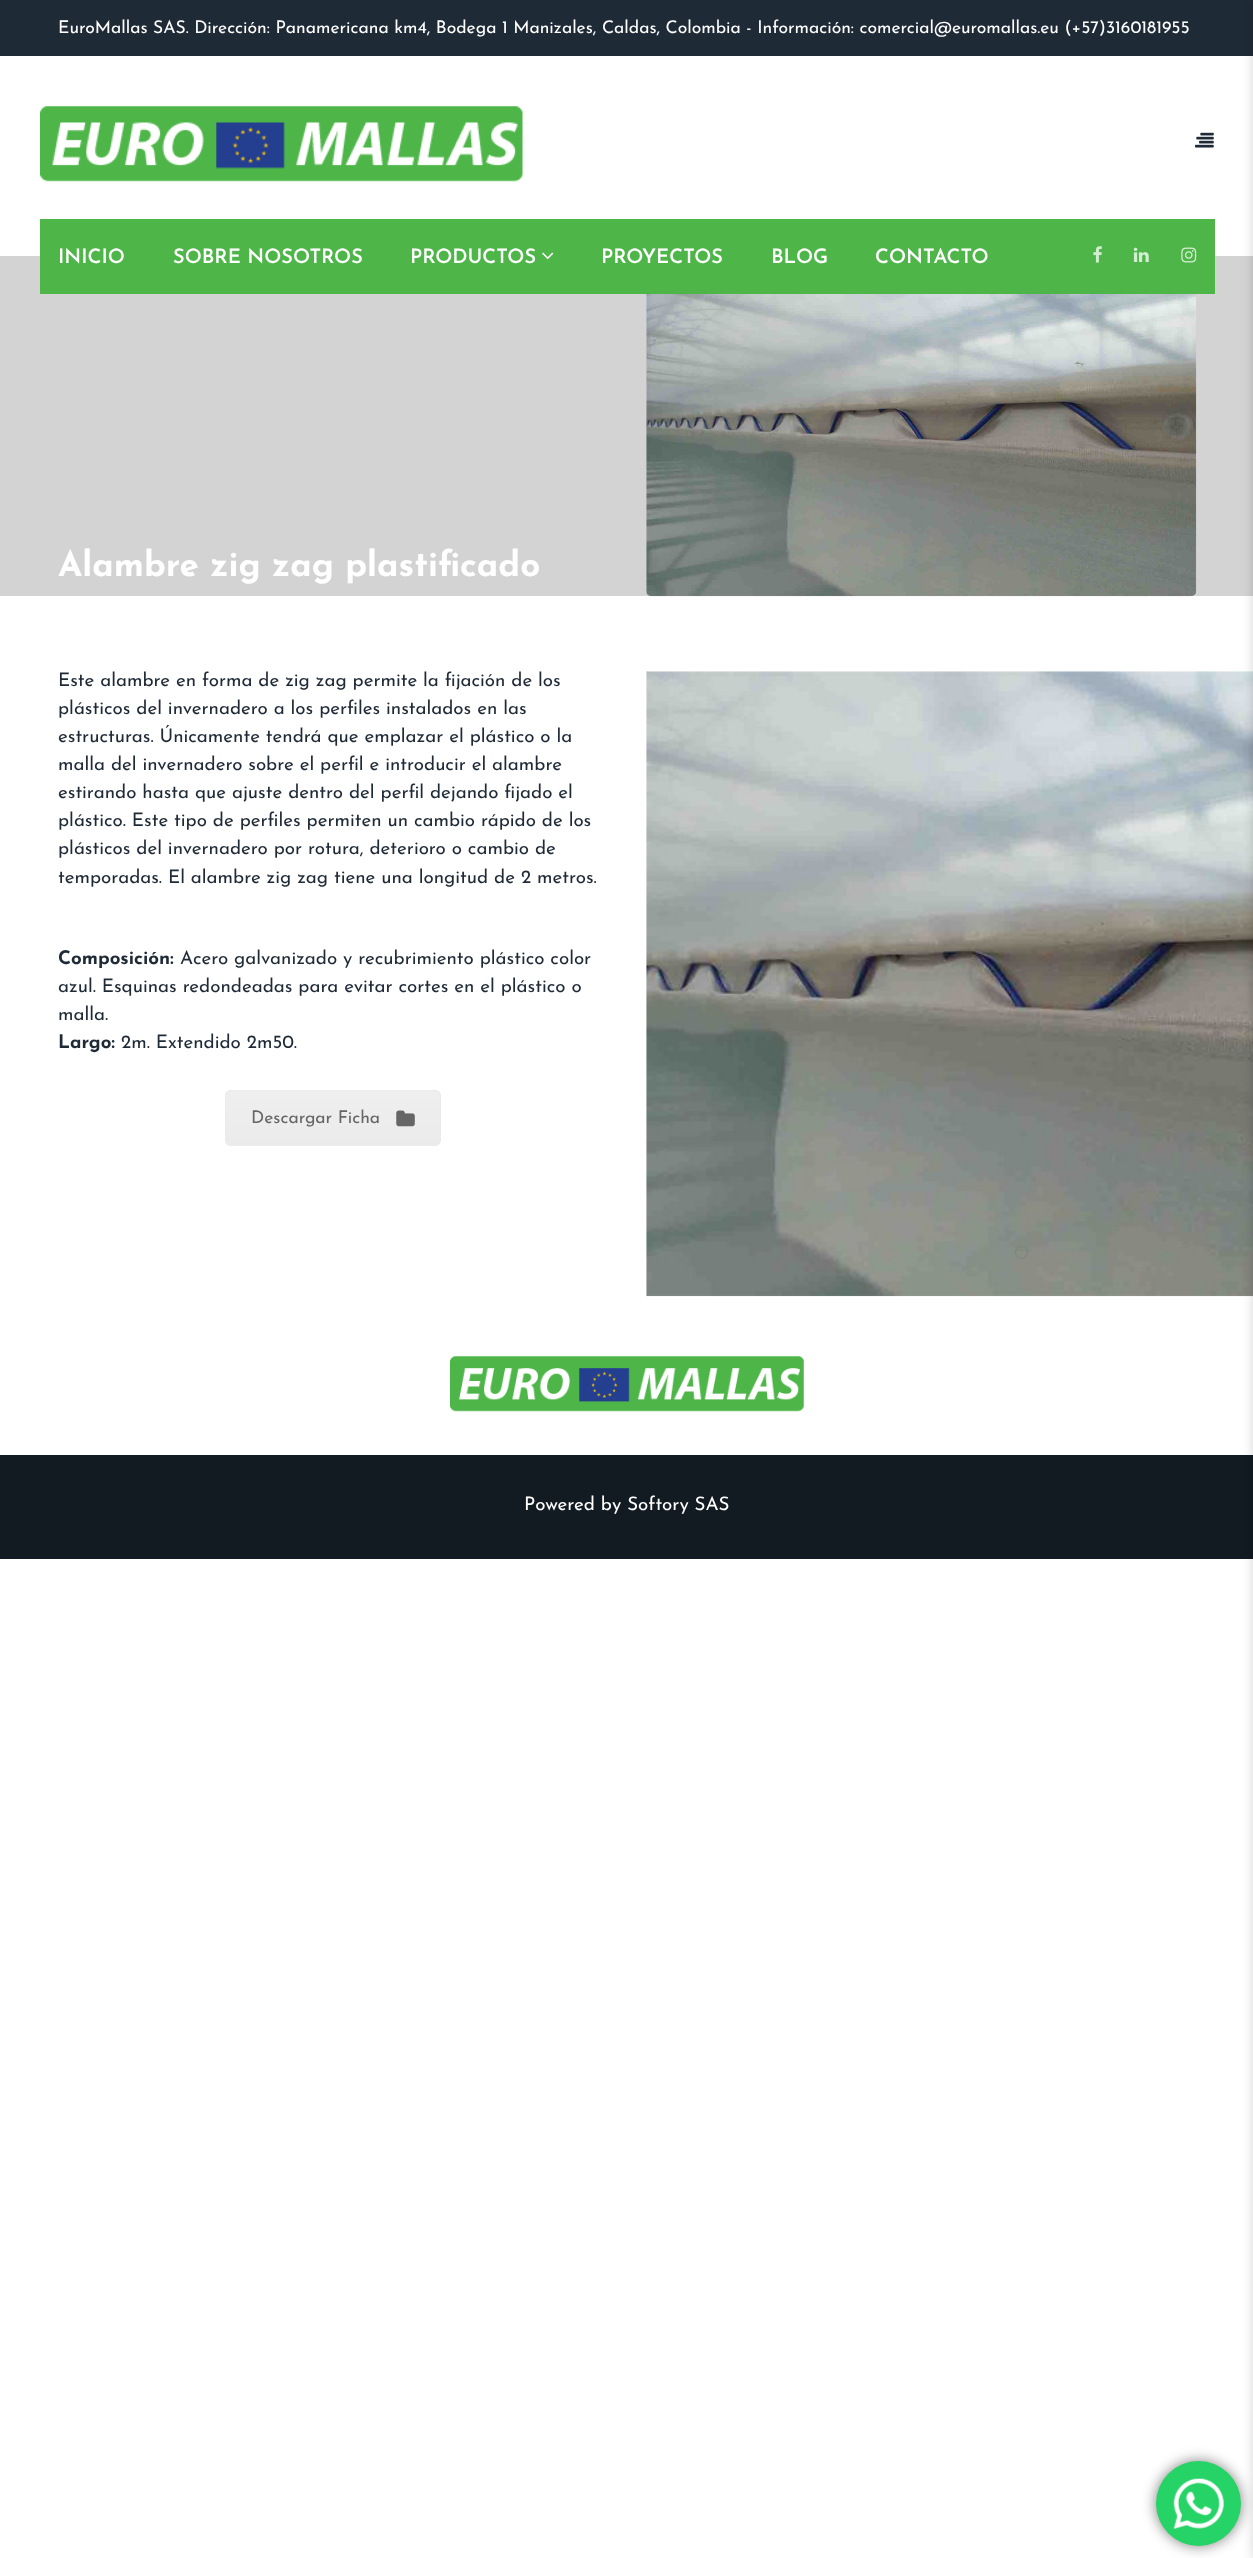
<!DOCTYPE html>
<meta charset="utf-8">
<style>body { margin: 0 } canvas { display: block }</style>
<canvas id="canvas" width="1253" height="2558"></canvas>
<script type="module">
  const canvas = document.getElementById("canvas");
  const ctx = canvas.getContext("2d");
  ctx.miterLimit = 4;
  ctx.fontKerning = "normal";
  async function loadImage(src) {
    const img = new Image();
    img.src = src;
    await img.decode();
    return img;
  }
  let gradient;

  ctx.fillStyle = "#ffffff";
  ctx.fillRect(0, 0, 1253, 2558);
  ctx.fillStyle = "#1f2a37";
  ctx.fillRect(0, 0, 1253, 56);
  ctx.font = "17.5px Josefin Sans";
  ctx.fillStyle = "#ffffff";
  ctx.fillText("EuroMallas SAS. Dirección: Panamericana km4, Bodega 1 Manizales, Caldas, Colombia - Información: comercial@euromallas.eu (+57)3160181955", 58, 33);
  ctx.drawImage(await loadImage("img1.png"), 40, 106, 483, 76);
  ctx.drawImage(await loadImage("img2.png"), 1195, 132, 19, 16);
  ctx.fillStyle = "#d3d3d3";
  ctx.fillRect(0, 256, 1253, 340);
  ctx.fillStyle = "#4eb648";
  ctx.fillRect(40, 219, 1175, 75);
  ctx.font = "600 20px Josefin Sans";
  ctx.fillStyle = "#ffffff";
  ctx.fillText("INICIO", 58, 263);
  ctx.fillText("SOBRE NOSOTROS", 173, 263);
  ctx.fillText("PRODUCTOS", 410, 263);
  ctx.drawImage(await loadImage("img3.png"), 542, 252, 12, 8);
  ctx.fillText("PROYECTOS", 601, 263);
  ctx.fillText("BLOG", 771, 263);
  ctx.fillText("CONTACTO", 875, 263);
  ctx.drawImage(await loadImage("img4.png"), 1093, 246, 9, 17);
  ctx.drawImage(await loadImage("img5.png"), 1133, 247, 16, 15);
  ctx.drawImage(await loadImage("img6.png"), 1181, 247, 16, 16);
  ctx.font = "bold 35px Josefin Sans";
  ctx.fillText("Alambre zig zag plastificado", 58, 576);
  ctx.drawImage(await loadImage("img7.png"), 646, 294, 551, 303);
  ctx.font = "18.75px Josefin Sans";
  ctx.fillStyle = "#1f2a37";
  ctx.fillText("Este alambre en forma de zig zag permite la fijación de los", 58, 686);
  ctx.fillText("plásticos del invernadero a los perfiles instalados en las", 58, 714);
  ctx.fillText("estructuras. Únicamente tendrá que emplazar el plástico o la", 58, 742);
  ctx.fillText("malla del invernadero sobre el perfil e introducir el alambre", 58, 770);
  ctx.fillText("estirando hasta que ajuste dentro del perfil dejando fijado el", 58, 798);
  ctx.fillText("plástico. Este tipo de perfiles permiten un cambio rápido de los", 58, 826);
  ctx.fillText("plásticos del invernadero por rotura, deterioro o cambio de", 58, 854);
  ctx.fillText("temporadas. El alambre zig zag tiene una longitud de 2 metros.", 58, 883);
  ctx.font = "bold 18.75px Josefin Sans";
  ctx.fillText("Composición:", 58, 964);
  ctx.font = "18.75px Josefin Sans";
  ctx.fillText("Acero galvanizado y recubrimiento plástico color", 180, 964);
  ctx.fillText("azul. Esquinas redondeadas para evitar cortes en el plástico o", 58, 992);
  ctx.fillText("malla.", 58, 1020);
  ctx.font = "bold 18.75px Josefin Sans";
  ctx.fillText("Largo:", 58, 1048);
  ctx.font = "18.75px Josefin Sans";
  ctx.fillText("2m. Extendido 2m50.", 121, 1048);
  ctx.fillStyle = "#ebebeb";
  ctx.beginPath();
  ctx.roundRect(225, 1090, 216, 56, 6);
  ctx.fill();
  ctx.save();
  ctx.beginPath();
  ctx.roundRect(225, 1090, 216, 56, 6);
  ctx.clip();
  gradient = ctx.createLinearGradient(333, 1091, 333, 1145);
  gradient.addColorStop(0, "rgba(255, 255, 255, 0.2)");
  gradient.addColorStop(1, "rgba(255, 255, 255, 0.01)");
  ctx.fillStyle = gradient;
  ctx.fillRect(225, 1091, 216, 51);
  ctx.restore();
  ctx.beginPath();
  ctx.roundRect(225.5, 1090.5, 215, 55, 5.5);
  ctx.strokeStyle = "#ebebeb";
  ctx.stroke();
  ctx.font = "17.5px Josefin Sans";
  ctx.fillStyle = "#666666";
  ctx.fillText("Descargar Ficha", 251, 1123);
  ctx.drawImage(await loadImage("img8.png"), 396, 1110, 19, 17);
  ctx.drawImage(await loadImage("img9.png"), 646, 671, 607, 626);
  ctx.beginPath();
  ctx.arc(1021.5, 1252.5, 6, 0, Math.PI * 2);
  ctx.strokeStyle = "#808080";
  ctx.stroke();
  ctx.drawImage(await loadImage("img10.png"), 450, 1356, 354, 56);
  ctx.fillStyle = "#121a22";
  ctx.fillRect(0, 1455, 1253, 104);
  ctx.font = "18.75px Josefin Sans";
  ctx.fillStyle = "#ffffff";
  ctx.fillText("Powered by Softory SAS", 524, 1510);
  ctx.fillStyle = "rgba(0, 0, 0, 0.2)";
  ctx.filter = "blur(6px)";
  ctx.beginPath();
  ctx.rect(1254, 0, 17, 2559);
  ctx.fill();
  ctx.filter = "none";
  ctx.fillStyle = "rgba(0, 0, 0, 0.5)";
  ctx.filter = "blur(7px)";
  ctx.beginPath();
  ctx.roundRect(1156, 2461, 85, 85, 42.5);
  ctx.fill();
  ctx.filter = "none";
  ctx.fillStyle = "#25d366";
  ctx.beginPath();
  ctx.arc(1198.5, 2503.5, 42.5, 0, Math.PI * 2);
  ctx.fill();
  ctx.drawImage(await loadImage("img11.png"), 1173, 2478, 51, 51);
</script>
